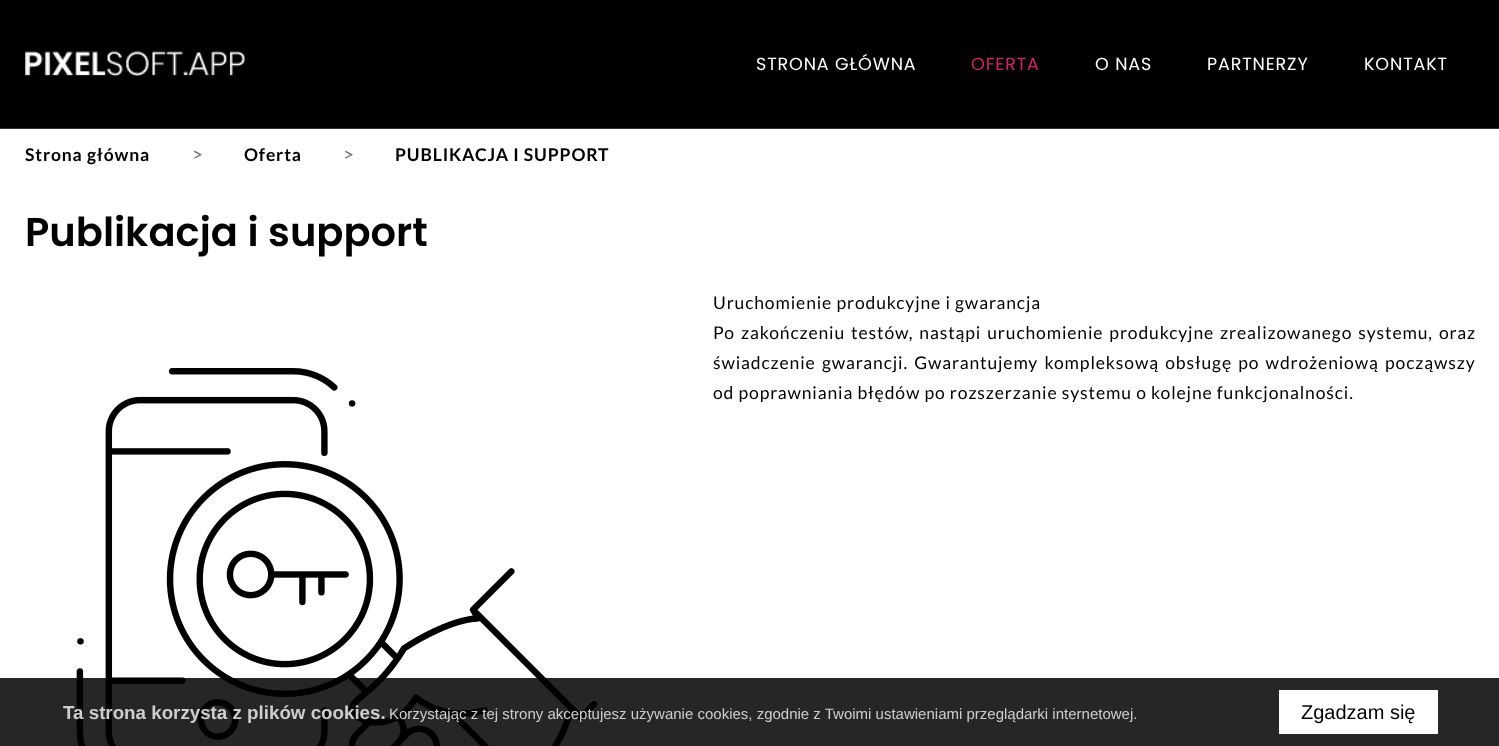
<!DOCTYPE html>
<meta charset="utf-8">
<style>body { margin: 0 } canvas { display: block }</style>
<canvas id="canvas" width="1499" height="746"></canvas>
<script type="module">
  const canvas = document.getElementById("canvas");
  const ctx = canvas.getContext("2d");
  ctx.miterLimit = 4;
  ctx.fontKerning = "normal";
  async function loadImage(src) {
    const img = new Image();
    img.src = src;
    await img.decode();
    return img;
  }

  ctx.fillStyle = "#ffffff";
  ctx.fillRect(0, 0, 1499, 746);
  ctx.fillStyle = "#000000";
  ctx.fillRect(0, 0, 1499, 128);
  ctx.fillStyle = "#333333";
  ctx.fillRect(0, 128, 1499, 1);
  ctx.drawImage(await loadImage("img1.png"), 25, 51, 220, 26);
  ctx.letterSpacing = "0.88px";
  ctx.font = "17.5px Poppins";
  ctx.fillStyle = "#ffffff";
  ctx.fillText("STRONA GŁÓWNA", 756, 70);
  ctx.fillStyle = "#da206a";
  ctx.fillText("OFERTA", 971, 70);
  ctx.fillStyle = "#ffffff";
  ctx.fillText("O NAS", 1095, 70);
  ctx.fillText("PARTNERZY", 1207, 70);
  ctx.fillText("KONTAKT", 1364, 70);
  ctx.font = "bold 17.5px Lato";
  ctx.fillStyle = "#000000";
  ctx.fillText("Strona główna", 25, 161);
  ctx.letterSpacing = "0px";
  ctx.font = "18.75px Lato";
  ctx.fillStyle = "#6d6e71";
  ctx.fillText(">", 192, 161);
  ctx.letterSpacing = "0.88px";
  ctx.font = "bold 17.5px Lato";
  ctx.fillStyle = "#000000";
  ctx.fillText("Oferta", 244, 161);
  ctx.letterSpacing = "0px";
  ctx.font = "18.75px Lato";
  ctx.fillStyle = "#6d6e71";
  ctx.fillText(">", 343, 161);
  ctx.letterSpacing = "0.88px";
  ctx.font = "bold 17.5px Lato";
  ctx.fillStyle = "#000000";
  ctx.fillText("PUBLIKACJA I SUPPORT", 395, 161);
  ctx.letterSpacing = "0px";
  ctx.font = "600 40px Poppins";
  ctx.fillText("Publikacja i support", 25, 246);
  ctx.letterSpacing = "0.88px";
  ctx.font = "17.5px Lato";
  ctx.fillText("Uruchomienie produkcyjne i gwarancja", 713, 309);
  ctx.wordSpacing = "1.75px";
  ctx.fillText("Po zakończeniu testów, nastąpi uruchomienie produkcyjne zrealizowanego systemu, oraz", 713, 339);
  ctx.wordSpacing = "2px";
  ctx.fillText("świadczenie gwarancji. Gwarantujemy kompleksową obsługę po wdrożeniową począwszy", 713, 369);
  ctx.wordSpacing = "0px";
  ctx.fillText("od poprawniania błędów po rozszerzanie systemu o kolejne funkcjonalności.", 713, 399);
  ctx.drawImage(await loadImage("img2.png"), 76, 368, 522, 378);
  ctx.fillStyle = "rgba(0, 0, 0, 0.85)";
  ctx.fillRect(0, 678, 1499, 68);
  ctx.letterSpacing = "0px";
  ctx.font = "bold 18.75px Liberation Sans";
  ctx.fillStyle = "#cecece";
  ctx.fillText("Ta strona korzysta z plików cookies.", 63, 719);
  ctx.font = "15px Liberation Sans";
  ctx.fillText("Korzystając z tej strony akceptujesz używanie cookies, zgodnie z Twoimi ustawieniami przeglądarki internetowej.", 389, 719);
  ctx.fillStyle = "#ffffff";
  ctx.fillRect(1279, 690, 159, 44);
  ctx.font = "20px Liberation Sans";
  ctx.fillStyle = "#000000";
  ctx.fillText("Zgadzam się", 1301, 719);
</script>
